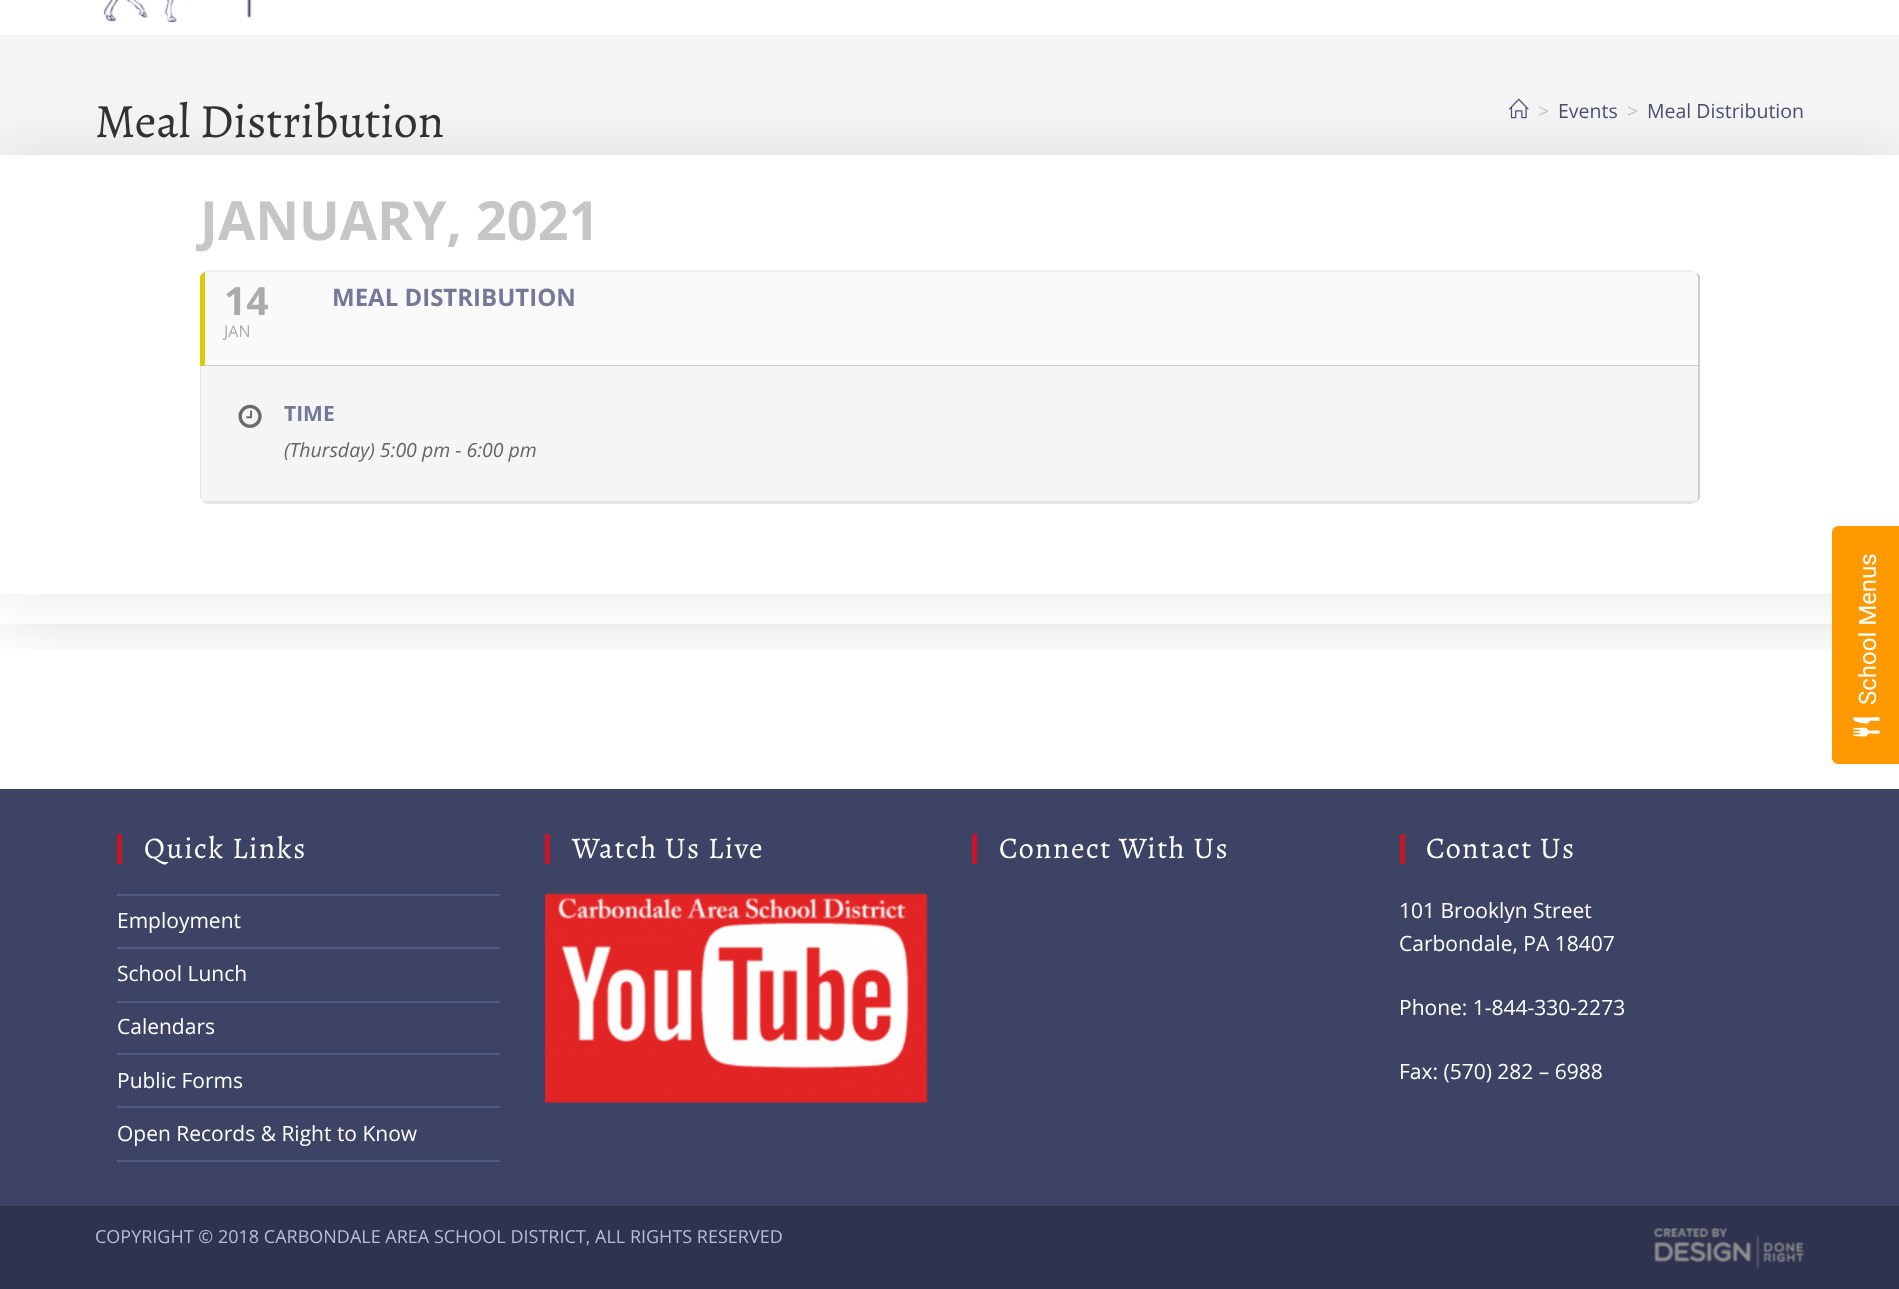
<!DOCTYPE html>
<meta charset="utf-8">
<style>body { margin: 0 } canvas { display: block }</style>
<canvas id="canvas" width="1899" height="1289"></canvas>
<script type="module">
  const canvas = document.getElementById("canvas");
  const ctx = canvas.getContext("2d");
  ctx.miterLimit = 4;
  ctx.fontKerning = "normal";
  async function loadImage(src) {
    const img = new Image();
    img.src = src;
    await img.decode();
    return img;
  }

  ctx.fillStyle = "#ffffff";
  ctx.fillRect(0, 0, 1899, 1289);
  ctx.save();
  ctx.beginPath();
  ctx.rect(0, 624, 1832, 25);
  ctx.clip();
  ctx.fillStyle = "rgba(0, 0, 0, 0.1)";
  ctx.filter = "blur(30px)";
  ctx.beginPath();
  ctx.rect(0, 36, 1899, 588);
  ctx.fill();
  ctx.filter = "none";
  ctx.restore();
  ctx.fillRect(0, 0, 1899, 35);
  ctx.fillStyle = "#f1f1f1";
  ctx.fillRect(0, 35, 1899, 2);
  ctx.drawImage(await loadImage("img1.png"), 103, 0, 149, 22);
  ctx.fillStyle = "#f5f5f5";
  ctx.fillRect(0, 37, 1899, 118);
  ctx.font = "48px Alegreya";
  ctx.fillStyle = "#333333";
  ctx.fillText("Meal Distribution", 95, 137);
  ctx.drawImage(await loadImage("img2.png"), 1509, 98, 20, 21);
  ctx.font = "19.5px Open Sans";
  ctx.fillStyle = "#c6c6c6";
  ctx.fillText(">", 1538, 118);
  ctx.fillStyle = "#494f73";
  ctx.fillText("Events", 1558, 118);
  ctx.fillStyle = "#c6c6c6";
  ctx.fillText(">", 1627, 118);
  ctx.fillStyle = "#494f73";
  ctx.fillText("Meal Distribution", 1647, 118);
  ctx.save();
  ctx.beginPath();
  ctx.moveTo(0, 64);
  ctx.lineTo(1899, 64);
  ctx.lineTo(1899, 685);
  ctx.lineTo(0, 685);
  ctx.closePath();
  ctx.moveTo(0, 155);
  ctx.lineTo(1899, 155);
  ctx.lineTo(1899, 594);
  ctx.lineTo(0, 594);
  ctx.closePath();
  ctx.clip("evenodd");
  ctx.fillStyle = "rgba(0, 0, 0, 0.1)";
  ctx.filter = "blur(30px)";
  ctx.beginPath();
  ctx.rect(0, 155, 1899, 439);
  ctx.fill();
  ctx.filter = "none";
  ctx.restore();
  ctx.font = "bold 54px Open Sans";
  ctx.fillStyle = "#c6c6c6";
  ctx.fillText("JANUARY, 2021", 200, 240);
  ctx.fillStyle = "#efeeee";
  ctx.beginPath();
  ctx.moveTo(208, 270);
  ctx.lineTo(1690, 270);
  ctx.bezierCurveTo(1692, 270, 1695, 271, 1697, 273);
  ctx.lineTo(1696, 274);
  ctx.bezierCurveTo(1694, 273, 1692, 272, 1690, 272);
  ctx.lineTo(208, 272);
  ctx.bezierCurveTo(204, 272, 200, 275, 200, 279);
  ctx.bezierCurveTo(200, 274, 204, 270, 208, 270);
  ctx.closePath();
  ctx.fill();
  ctx.fillStyle = "#cdcdcd";
  ctx.beginPath();
  ctx.moveTo(1697, 273);
  ctx.lineTo(1696, 274);
  ctx.bezierCurveTo(1697, 275, 1698, 277, 1698, 279);
  ctx.lineTo(1698, 495);
  ctx.bezierCurveTo(1698, 500, 1695, 504, 1690, 504);
  ctx.bezierCurveTo(1694, 504, 1698, 501, 1700, 498);
  ctx.lineTo(1700, 276);
  ctx.bezierCurveTo(1699, 275, 1698, 274, 1697, 273);
  ctx.closePath();
  ctx.fill();
  ctx.fillStyle = "#fafafa";
  ctx.beginPath();
  ctx.moveTo(200, 278);
  ctx.lineTo(200, 276);
  ctx.bezierCurveTo(201, 274, 203, 273, 205, 272);
  ctx.lineTo(1693, 272);
  ctx.bezierCurveTo(1696, 273, 1698, 276, 1698, 279);
  ctx.lineTo(1698, 366);
  ctx.lineTo(200, 366);
  ctx.closePath();
  ctx.fill();
  ctx.fillStyle = "#d9cb04";
  ctx.beginPath();
  ctx.moveTo(200, 278);
  ctx.bezierCurveTo(200, 275, 202, 273, 205, 272);
  ctx.lineTo(205, 366);
  ctx.lineTo(200, 366);
  ctx.closePath();
  ctx.fill();
  ctx.font = "bold 39px Open Sans";
  ctx.fillStyle = "#ababab";
  ctx.fillText("14", 224, 315);
  ctx.font = "16px Open Sans";
  ctx.fillText("JAN", 224, 337);
  ctx.font = "bold 24px Open Sans";
  ctx.fillStyle = "#747998";
  ctx.fillText("MEAL DISTRIBUTION", 332, 306);
  ctx.fillStyle = "#cdcdcd";
  ctx.fillRect(204, 365, 1494, 1);
  ctx.fillStyle = "#f5f5f5";
  ctx.beginPath();
  ctx.moveTo(200, 366);
  ctx.lineTo(200, 496);
  ctx.bezierCurveTo(200, 498, 201, 499, 201, 501);
  ctx.bezierCurveTo(203, 503, 206, 504, 208, 504);
  ctx.lineTo(1690, 504);
  ctx.bezierCurveTo(1695, 504, 1698, 500, 1698, 495);
  ctx.lineTo(1698, 366);
  ctx.closePath();
  ctx.fill();
  ctx.fillStyle = "#e5e5e5";
  ctx.beginPath();
  ctx.moveTo(208, 504);
  ctx.lineTo(1690, 504);
  ctx.lineTo(1694, 503);
  ctx.lineTo(204, 503);
  ctx.closePath();
  ctx.fill();
  ctx.beginPath();
  ctx.moveTo(200, 366);
  ctx.lineTo(202, 366);
  ctx.lineTo(202, 501);
  ctx.bezierCurveTo(201, 500, 200, 498, 200, 496);
  ctx.closePath();
  ctx.fill();
  ctx.fillStyle = "#f5f5f5";
  ctx.beginPath();
  ctx.moveTo(201, 366);
  ctx.lineTo(1698, 366);
  ctx.lineTo(1698, 495);
  ctx.bezierCurveTo(1698, 498, 1696, 502, 1694, 503);
  ctx.lineTo(204, 503);
  ctx.lineTo(201, 500);
  ctx.closePath();
  ctx.fill();
  ctx.fillStyle = "#e5e5e5";
  ctx.beginPath();
  ctx.moveTo(204, 503);
  ctx.lineTo(202, 501);
  ctx.lineTo(1696, 501);
  ctx.lineTo(1694, 503);
  ctx.closePath();
  ctx.fill();
  ctx.drawImage(await loadImage("img3.png"), 238, 404, 24, 24);
  ctx.font = "bold 21px Open Sans";
  ctx.fillStyle = "#747998";
  ctx.fillText("TIME", 284, 421);
  ctx.font = "italic 19.5px Open Sans";
  ctx.fillStyle = "#656565";
  ctx.fillText("(Thursday) 5:00 pm - 6:00 pm", 284, 457);
  ctx.fillStyle = "#3d4364";
  ctx.fillRect(0, 789, 1899, 417);
  ctx.fillStyle = "#c81526";
  ctx.fillRect(117, 834, 5, 30);
  ctx.letterSpacing = "1.5px";
  ctx.font = "30px Alegreya";
  ctx.fillStyle = "#ffffff";
  ctx.fillText("Quick Links", 144, 858);
  ctx.fillStyle = "#505a84";
  ctx.fillRect(117, 894, 383, 2);
  ctx.fillRect(117, 947, 383, 2);
  ctx.letterSpacing = "0px";
  ctx.font = "21px Open Sans";
  ctx.fillStyle = "#ffffff";
  ctx.fillText("Employment", 117, 928);
  ctx.fillStyle = "#505a84";
  ctx.fillRect(117, 1001, 383, 2);
  ctx.fillStyle = "#ffffff";
  ctx.fillText("School Lunch", 117, 981);
  ctx.fillStyle = "#505a84";
  ctx.fillRect(117, 1053, 383, 2);
  ctx.fillStyle = "#ffffff";
  ctx.fillText("Calendars", 117, 1034);
  ctx.fillStyle = "#505a84";
  ctx.fillRect(117, 1106, 383, 2);
  ctx.fillStyle = "#ffffff";
  ctx.fillText("Public Forms", 117, 1088);
  ctx.fillStyle = "#505a84";
  ctx.fillRect(117, 1160, 383, 2);
  ctx.fillStyle = "#ffffff";
  ctx.fillText("Open Records & Right to Know", 117, 1141);
  ctx.fillStyle = "#c81526";
  ctx.fillRect(545, 834, 5, 30);
  ctx.letterSpacing = "1.5px";
  ctx.font = "30px Alegreya";
  ctx.fillStyle = "#ffffff";
  ctx.fillText("Watch Us Live", 572, 858);
  ctx.drawImage(await loadImage("img4.png"), 545, 893, 383, 210);
  ctx.fillStyle = "#c81526";
  ctx.fillRect(972, 834, 5, 30);
  ctx.fillStyle = "#ffffff";
  ctx.fillText("Connect With Us", 999, 858);
  ctx.fillStyle = "#c81526";
  ctx.fillRect(1400, 834, 5, 30);
  ctx.fillStyle = "#ffffff";
  ctx.fillText("Contact Us", 1426, 858);
  ctx.letterSpacing = "0px";
  ctx.font = "21px Open Sans";
  ctx.fillText("101 Brooklyn Street", 1399, 918);
  ctx.fillText("Carbondale, PA 18407", 1399, 951);
  ctx.fillText("Phone: 1-844-330-2273", 1399, 1015);
  ctx.fillText("Fax: (570) 282 – 6988", 1399, 1079);
  ctx.fillStyle = "#2e3350";
  ctx.fillRect(0, 1206, 1899, 83);
  ctx.font = "18px Open Sans";
  ctx.fillStyle = "#b8bddd";
  ctx.fillText("COPYRIGHT © 2018 CARBONDALE AREA SCHOOL DISTRICT, ALL RIGHTS RESERVED", 95, 1243);
  ctx.drawImage(await loadImage("img5.png"), 1654, 1228, 151, 40);
  ctx.fillStyle = "#ff9900";
  ctx.beginPath();
  ctx.moveTo(1832, 758);
  ctx.lineTo(1832, 532);
  ctx.bezierCurveTo(1832, 529, 1835, 526, 1838, 526);
  ctx.lineTo(1899, 526);
  ctx.lineTo(1899, 764);
  ctx.lineTo(1838, 764);
  ctx.bezierCurveTo(1835, 764, 1832, 761, 1832, 758);
  ctx.closePath();
  ctx.fill();
  ctx.font = "24px Roboto";
  ctx.fillStyle = "#ffffff";
  ctx.save();
  ctx.translate(1876, 705);
  ctx.rotate(-90 * Math.PI / 180);
  ctx.fillText("School Menus", 0, 0);
  ctx.restore();
  ctx.drawImage(await loadImage("img6.png"), 1853, 717, 27, 20);
</script>
